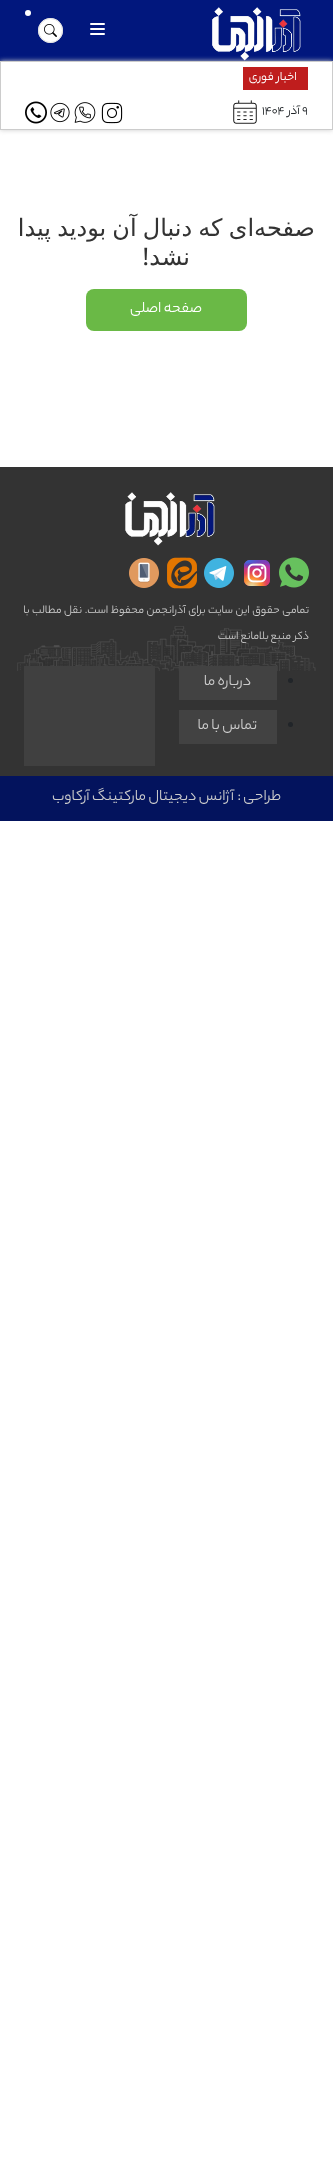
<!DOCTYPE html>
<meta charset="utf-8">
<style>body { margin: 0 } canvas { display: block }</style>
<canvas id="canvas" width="333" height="2177"></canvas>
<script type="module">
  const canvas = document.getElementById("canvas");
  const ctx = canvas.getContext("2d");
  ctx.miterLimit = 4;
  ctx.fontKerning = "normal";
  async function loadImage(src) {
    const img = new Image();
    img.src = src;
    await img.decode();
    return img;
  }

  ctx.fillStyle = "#ffffff";
  ctx.fillRect(0, 0, 333, 2177);
  ctx.fillStyle = "#01177d";
  ctx.fillRect(0, 0, 333, 61);
  ctx.save();
  ctx.beginPath();
  ctx.moveTo(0, 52);
  ctx.lineTo(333, 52);
  ctx.lineTo(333, 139);
  ctx.lineTo(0, 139);
  ctx.closePath();
  ctx.moveTo(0, 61);
  ctx.lineTo(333, 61);
  ctx.lineTo(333, 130);
  ctx.lineTo(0, 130);
  ctx.closePath();
  ctx.clip("evenodd");
  ctx.fillStyle = "#cccccc";
  ctx.filter = "blur(2.5px)";
  ctx.beginPath();
  ctx.rect(0, 61, 333, 69);
  ctx.fill();
  ctx.filter = "none";
  ctx.restore();
  ctx.drawImage(await loadImage("img1.png"), 212, 7, 89, 54);
  ctx.fillStyle = "#ffffff";
  ctx.beginPath();
  ctx.roundRect(90, 23, 15, 2, 1);
  ctx.fill();
  ctx.beginPath();
  ctx.roundRect(90, 28, 15, 2, 1);
  ctx.fill();
  ctx.beginPath();
  ctx.roundRect(90, 33, 15, 2, 1);
  ctx.fill();
  ctx.beginPath();
  ctx.arc(50.5, 30.5, 12.5, 0, Math.PI * 2);
  ctx.fill();
  ctx.drawImage(await loadImage("img2.png"), 44, 24, 13, 13);
  ctx.beginPath();
  ctx.arc(50.5, 30.5, 12, 0, Math.PI * 2);
  ctx.strokeStyle = "#dedede";
  ctx.stroke();
  ctx.strokeStyle = "#cccccc";
  ctx.strokeRect(0.5, 61.5, 332, 68);
  ctx.fillStyle = "#bf1d1d";
  ctx.fillRect(243, 67, 65, 23);
  ctx.fillStyle = "#ffffff";
  ctx.beginPath();
  ctx.arc(28, 13, 3, 0, Math.PI * 2);
  ctx.fill();
  ctx.direction = "rtl";
  ctx.font = "13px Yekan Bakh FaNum";
  ctx.fillText("اخبار فوری", 297, 80);
  ctx.direction = "ltr";
  ctx.fillStyle = "#212529";
  ctx.fillText("۹", 302, 114);
  ctx.direction = "rtl";
  ctx.fillText("آذر", 300, 114);
  ctx.direction = "ltr";
  ctx.fillText("۱۴۰۴", 262, 114);
  ctx.drawImage(await loadImage("img3.png"), 233, 100, 24, 24);
  ctx.drawImage(await loadImage("img4.png"), 101, 102, 22, 22);
  ctx.drawImage(await loadImage("img5.png"), 74, 102, 22, 21);
  ctx.drawImage(await loadImage("img6.png"), 50, 102, 20, 21);
  ctx.drawImage(await loadImage("img7.png"), 25, 101, 22, 23);
  ctx.wordSpacing = "-1.5px";
  ctx.direction = "rtl";
  ctx.font = "24px DejaVu Sans";
  ctx.fillStyle = "#333333";
  ctx.fillText("صفحه‌ای که دنبال آن بودید پیدا", 315, 236);
  ctx.wordSpacing = "0px";
  ctx.fillText("نشد", 190, 265);
  ctx.font = "500 24px Open Sans";
  ctx.fillText("!", 149, 265);
  ctx.fillStyle = "#6ab946";
  ctx.beginPath();
  ctx.roundRect(86, 289, 161, 42, 8);
  ctx.fill();
  ctx.font = "16px Yekan Bakh FaNum";
  ctx.fillStyle = "#ffffff";
  ctx.fillText("صفحه اصلی", 202, 312);
  ctx.fillStyle = "#333333";
  ctx.fillRect(0, 467, 333, 309);
  ctx.drawImage(await loadImage("img8.png"), 17, 626, 299, 45);
  ctx.drawImage(await loadImage("img9.png"), 125, 492, 90, 54);
  ctx.drawImage(await loadImage("img10.png"), 279, 557, 30, 31);
  ctx.drawImage(await loadImage("img11.png"), 244, 560, 26, 26);
  ctx.drawImage(await loadImage("img12.png"), 204, 558, 30, 30);
  ctx.drawImage(await loadImage("img13.png"), 167, 557, 30, 32);
  ctx.drawImage(await loadImage("img14.png"), 129, 558, 30, 30);
  ctx.wordSpacing = "0.75px";
  ctx.font = "12px Yekan Bakh FaNum";
  ctx.fillStyle = "#cccccc";
  ctx.fillText("تمامی حقوق این سایت برای آذرانجمن محفوظ است. نقل مطالب با", 309, 613);
  ctx.wordSpacing = "0px";
  ctx.fillText("ذکر منبع بلامانع است", 309, 639);
  ctx.fillStyle = "#212529";
  ctx.beginPath();
  ctx.arc(290.5, 680.5, 2.5, 0, Math.PI * 2);
  ctx.fill();
  ctx.fillStyle = "#424242";
  ctx.fillRect(179, 666, 98, 34);
  ctx.font = "16px Yekan Bakh FaNum";
  ctx.fillStyle = "#cccccc";
  ctx.fillText("درباره ما", 251, 685);
  ctx.fillStyle = "#212529";
  ctx.beginPath();
  ctx.arc(290.5, 724.5, 2.5, 0, Math.PI * 2);
  ctx.fill();
  ctx.fillStyle = "#424242";
  ctx.fillRect(179, 710, 98, 34);
  ctx.fillStyle = "#cccccc";
  ctx.fillText("تماس با ما", 257, 729);
  ctx.fillStyle = "#404040";
  ctx.fillRect(24, 666, 131, 100);
  ctx.fillStyle = "#03135d";
  ctx.fillRect(0, 776, 333, 45);
  ctx.fillStyle = "#cccccc";
  ctx.fillText("طراحی :", 281, 800);
  ctx.fillText("آژانس دیجیتال مارکتینگ آرکاوب", 234, 800);
</script>
